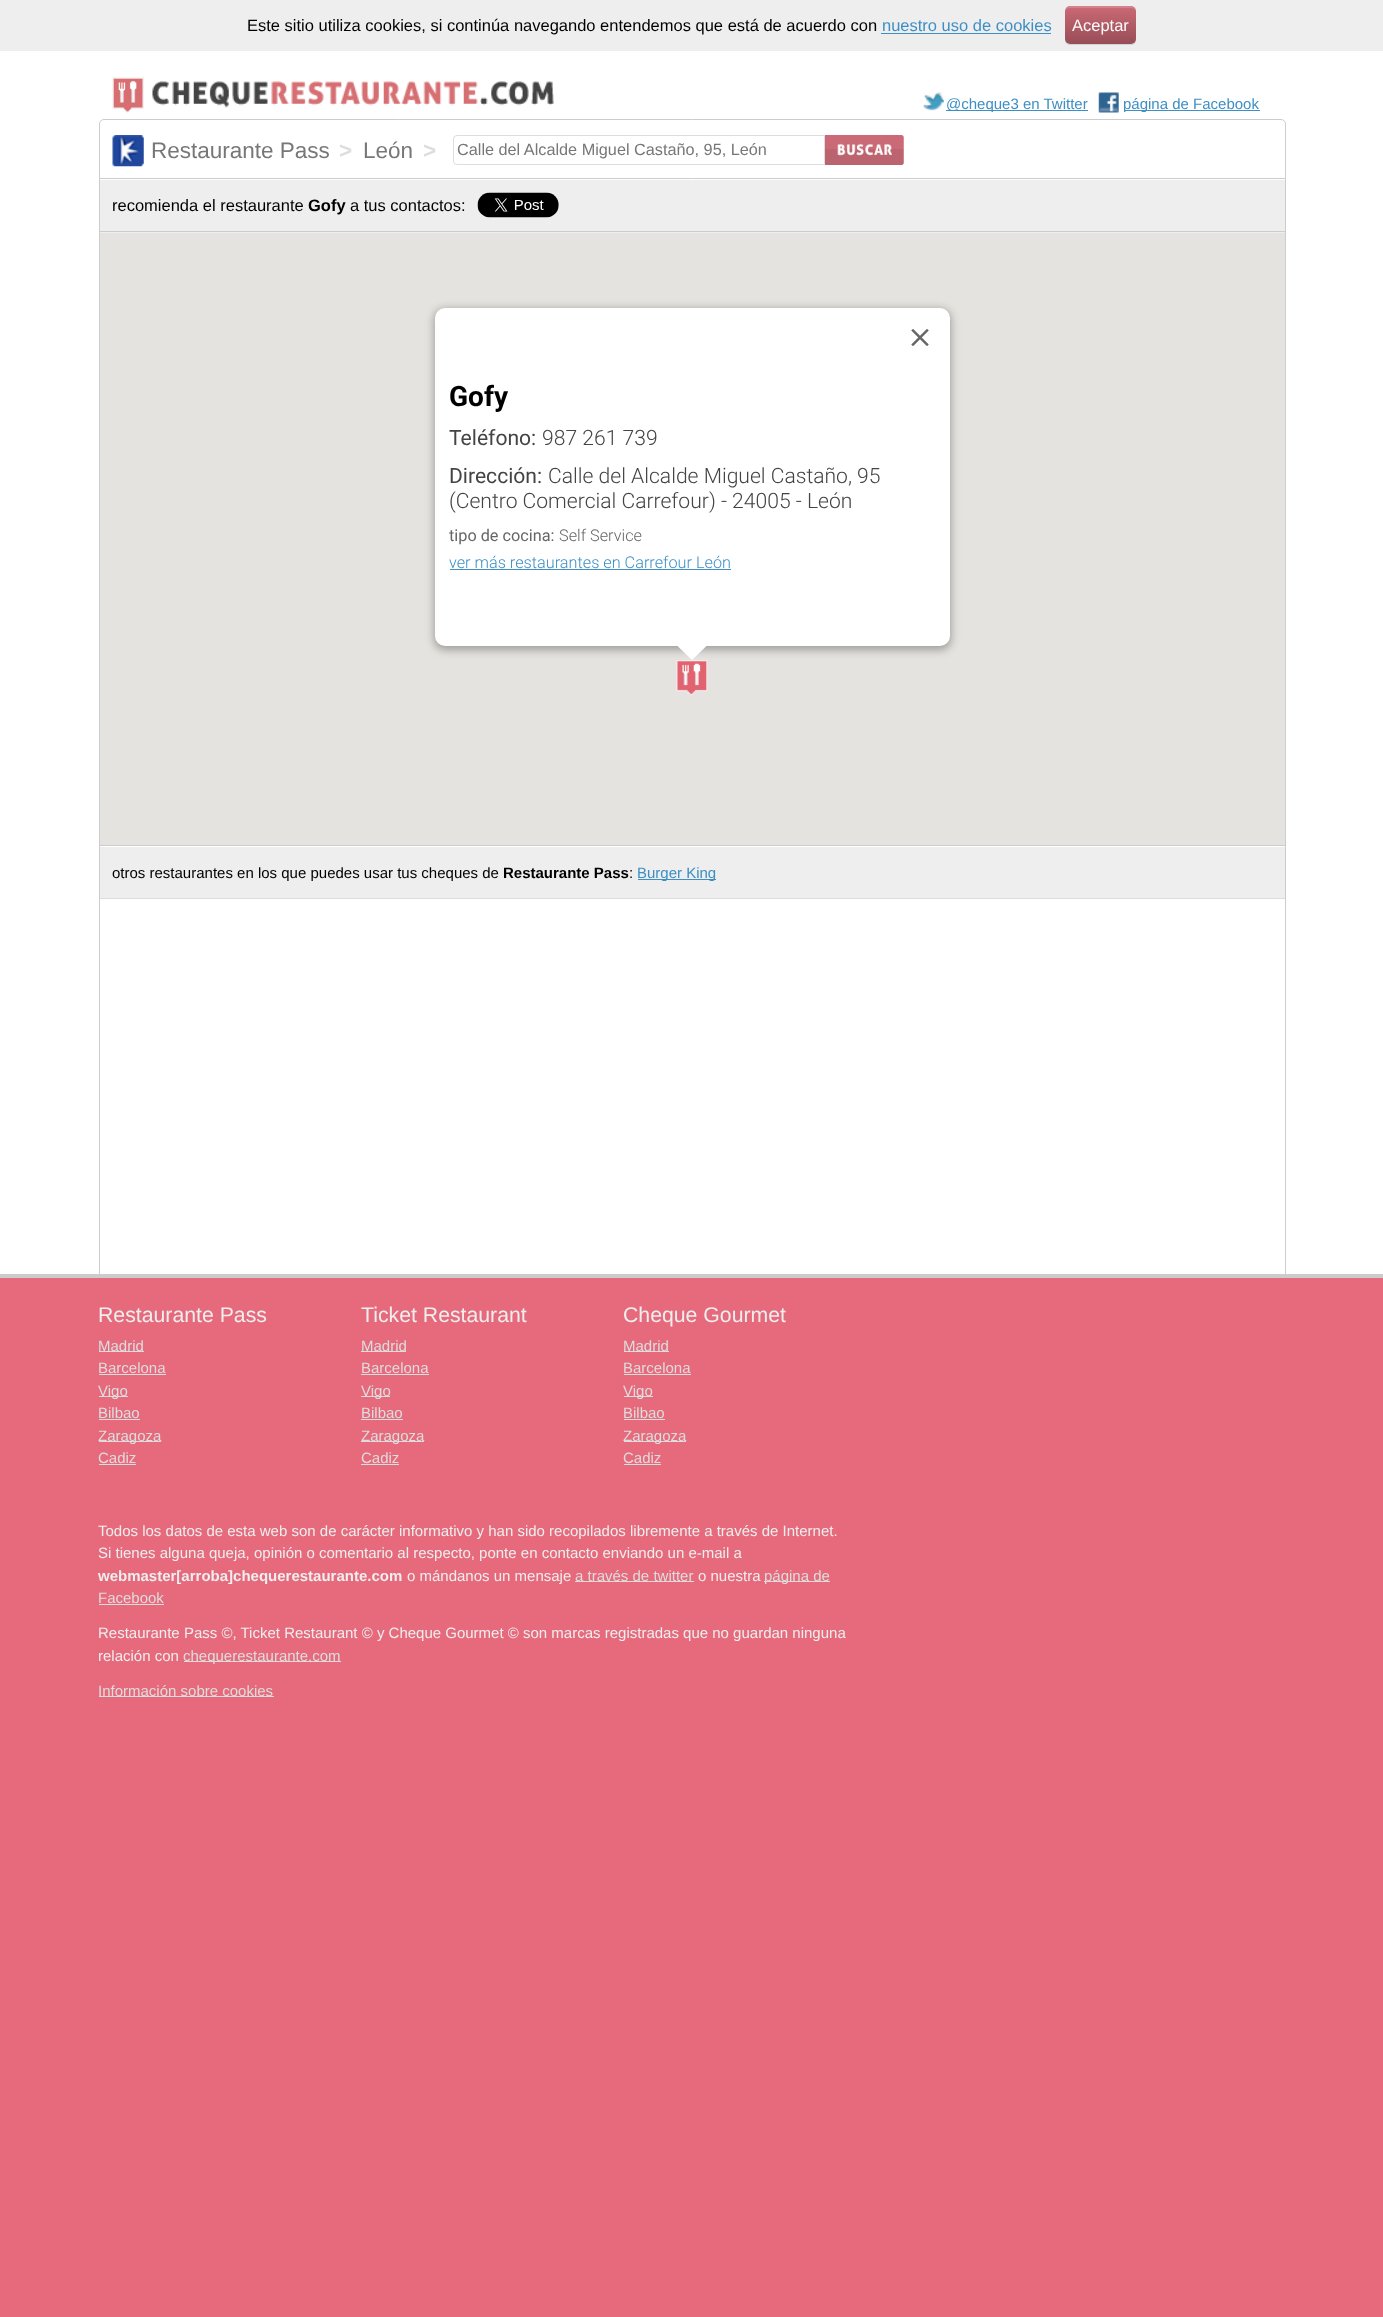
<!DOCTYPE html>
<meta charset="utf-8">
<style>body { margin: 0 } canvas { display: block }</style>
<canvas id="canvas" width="1383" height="2317"></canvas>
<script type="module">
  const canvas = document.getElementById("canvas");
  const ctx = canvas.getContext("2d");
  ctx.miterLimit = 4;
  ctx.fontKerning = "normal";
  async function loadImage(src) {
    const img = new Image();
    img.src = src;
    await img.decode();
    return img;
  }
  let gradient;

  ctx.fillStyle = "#e66a7c";
  ctx.fillRect(0, 0, 1383, 2317);
  ctx.fillStyle = "#ffffff";
  ctx.fillRect(0, 51, 1383, 1223);
  ctx.fillStyle = "#eeeeee";
  ctx.fillRect(0, 0, 1383, 51);
  ctx.font = "16.5px Liberation Sans";
  ctx.fillStyle = "#000000";
  ctx.fillText("Este sitio utiliza cookies, si continúa navegando entendemos que está de acuerdo con", 247, 31);
  ctx.fillStyle = "#3d8fc4";
  ctx.fillText("nuestro uso de cookies", 882, 31);
  ctx.fillRect(881, 33, 170, 1);
  ctx.fillStyle = "#d1d3d6";
  ctx.beginPath();
  ctx.moveTo(1065, 39);
  ctx.lineTo(1065, 40);
  ctx.bezierCurveTo(1065, 43, 1067, 45, 1070, 45);
  ctx.lineTo(1131, 45);
  ctx.bezierCurveTo(1134, 45, 1136, 43, 1136, 40);
  ctx.bezierCurveTo(1135, 42, 1133, 44, 1131, 44);
  ctx.lineTo(1070, 44);
  ctx.bezierCurveTo(1067, 44, 1065, 42, 1065, 39);
  ctx.closePath();
  ctx.fill();
  gradient = ctx.createLinearGradient(1065, 6.2, 1065, 44);
  gradient.addColorStop(0, "#cb6a76");
  gradient.addColorStop(1, "#974d56");
  ctx.fillStyle = gradient;
  ctx.beginPath();
  ctx.roundRect(1065, 6, 71, 38, 5);
  ctx.fill();
  ctx.fillStyle = "#fdfcfc";
  ctx.fillText("Aceptar", 1072, 31);
  ctx.fillStyle = "rgba(255, 255, 255, 0.17)";
  ctx.beginPath();
  ctx.moveTo(1070, 8);
  ctx.lineTo(1131, 8);
  ctx.bezierCurveTo(1134, 8, 1136, 10, 1136, 12);
  ctx.bezierCurveTo(1136, 4, 1127, 6, 1121, 6);
  ctx.lineTo(1080, 6);
  ctx.bezierCurveTo(1074, 6, 1065, 4, 1065, 12);
  ctx.bezierCurveTo(1065, 10, 1067, 8, 1070, 8);
  ctx.closePath();
  ctx.fill();
  ctx.drawImage(await loadImage("img1.png"), 112, 77, 442, 36);
  ctx.drawImage(await loadImage("img2.png"), 923, 92, 21, 19);
  ctx.fillStyle = "#3d8fc4";
  ctx.fillRect(946, 110, 142, 1);
  ctx.font = "15px Liberation Sans";
  ctx.fillText("@cheque3 en Twitter", 946, 109);
  ctx.drawImage(await loadImage("img3.png"), 1098, 92, 21, 21);
  ctx.fillRect(1124, 110, 136, 1);
  ctx.fillText("página de Facebook", 1123, 109);
  ctx.beginPath();
  ctx.roundRect(99.5, 119.5, 1186, 59, [4.5, 4.5, 0, 0]);
  ctx.strokeStyle = "#cccccc";
  ctx.stroke();
  ctx.drawImage(await loadImage("img4.png"), 112, 135, 32, 32);
  ctx.font = "22.5px Liberation Sans";
  ctx.fillStyle = "#777777";
  ctx.fillText("Restaurante Pass", 151, 158);
  ctx.font = "bold 22.5px Liberation Sans";
  ctx.fillStyle = "#dddddd";
  ctx.fillText(">", 339, 158);
  ctx.font = "22.5px Liberation Sans";
  ctx.fillStyle = "#777777";
  ctx.fillText("León", 363, 158);
  ctx.font = "bold 22.5px Liberation Sans";
  ctx.fillStyle = "#dddddd";
  ctx.fillText(">", 423, 158);
  ctx.beginPath();
  ctx.roundRect(453.5, 135.5, 371, 29, [3.5, 0, 0, 3.5]);
  ctx.strokeStyle = "#dddddd";
  ctx.stroke();
  ctx.font = "16.25px Liberation Sans";
  ctx.fillStyle = "#777777";
  ctx.fillText("Calle del Alcalde Miguel Castaño, 95, León", 457, 155);
  ctx.drawImage(await loadImage("img5.png"), 825, 135, 79, 30);
  ctx.fillStyle = "#eeeeee";
  ctx.fillRect(100, 180, 1185, 53);
  ctx.fillStyle = "#cccccc";
  ctx.fillRect(1285, 179, 1, 54);
  ctx.fillRect(99, 231, 1187, 1);
  ctx.fillRect(99, 179, 1, 54);
  ctx.font = "16.5px Liberation Sans";
  ctx.fillStyle = "#000000";
  ctx.fillText("recomienda el restaurante", 112, 211);
  ctx.font = "bold 16.5px Liberation Sans";
  ctx.fillText("Gofy", 308, 211);
  ctx.font = "16.5px Liberation Sans";
  ctx.fillText("a tus contactos:", 350, 211);
  ctx.drawImage(await loadImage("img6.png"), 477, 192, 82, 26);
  ctx.fillStyle = "#cccccc";
  ctx.fillRect(1285, 233, 1, 665);
  ctx.fillRect(99, 845, 1187, 1);
  ctx.fillRect(99, 233, 1, 613);
  ctx.fillStyle = "#e5e3df";
  ctx.fillRect(100, 233, 1185, 612);
  ctx.drawImage(await loadImage("img8.png"), 676, 660, 32, 35);
  ctx.fillStyle = "rgba(0, 0, 0, 0.3)";
  ctx.filter = "blur(4.5px)";
  ctx.beginPath();
  ctx.roundRect(434, 309, 517, 341, 11);
  ctx.fill();
  ctx.filter = "none";
  ctx.fillStyle = "#ffffff";
  ctx.beginPath();
  ctx.roundRect(435, 308, 515, 338, 10);
  ctx.fill();
  ctx.drawImage(await loadImage("img7.png"), 911, 329, 18, 17);
  ctx.font = "bold 28px Roboto";
  ctx.fillStyle = "#000000";
  ctx.fillText("Gofy", 449, 406);
  ctx.font = "21.1px Roboto";
  ctx.fillStyle = "#444444";
  ctx.fillText("Teléfono:", 449, 445);
  ctx.font = "300 21.1px Roboto";
  ctx.fillText("987 261 739", 542, 445);
  ctx.font = "21.1px Roboto";
  ctx.fillText("Dirección:", 449, 483);
  ctx.font = "300 21.1px Roboto";
  ctx.fillText("Calle del Alcalde Miguel Castaño, 95", 548, 483);
  ctx.fillText("(Centro Comercial Carrefour) - 24005 - León", 449, 508);
  ctx.font = "16.25px Roboto";
  ctx.fillStyle = "#666666";
  ctx.fillText("tipo de cocina:", 449, 541);
  ctx.font = "300 16.25px Roboto";
  ctx.fillText("Self Service", 559, 541);
  ctx.fillStyle = "#3d8fc4";
  ctx.fillText("ver más restaurantes en Carrefour León", 449, 568);
  ctx.fillRect(450, 569, 281, 1);
  ctx.fillStyle = "#ffffff";
  ctx.beginPath();
  ctx.moveTo(678, 645);
  ctx.lineTo(678, 646.5);
  ctx.lineTo(692, 660);
  ctx.lineTo(707.5, 645);
  ctx.closePath();
  ctx.fill();
  ctx.fillStyle = "#eeeeee";
  ctx.fillRect(100, 847, 1185, 51);
  ctx.fillStyle = "#cccccc";
  ctx.fillRect(99, 846, 1, 52);
  ctx.font = "15px Liberation Sans";
  ctx.fillStyle = "#000000";
  ctx.fillText("otros restaurantes en los que puedes usar tus cheques de", 112, 878);
  ctx.font = "bold 15px Liberation Sans";
  ctx.fillText("Restaurante Pass", 503, 878);
  ctx.font = "15px Liberation Sans";
  ctx.fillText(":", 629, 878);
  ctx.fillStyle = "#3d8fc4";
  ctx.fillRect(638, 879, 78, 1);
  ctx.fillText("Burger King", 637, 878);
  ctx.fillStyle = "#dddddd";
  ctx.fillRect(99, 898, 1187, 1);
  ctx.fillStyle = "#cccccc";
  ctx.fillRect(1285, 898, 1, 376);
  ctx.fillRect(99, 898, 1, 376);
  ctx.fillRect(0, 1274, 1383, 4);
  ctx.font = "21.25px Liberation Sans";
  ctx.fillStyle = "#eeeeee";
  ctx.fillText("Restaurante Pass", 98, 1322);
  ctx.fillStyle = "#dddddd";
  ctx.fillRect(99, 1351, 45, 1);
  ctx.font = "15px Liberation Sans";
  ctx.fillText("Madrid", 98, 1351);
  ctx.fillText("Barcelona", 98, 1373);
  ctx.fillRect(99, 1374, 67, 1);
  ctx.fillRect(99, 1396, 29, 1);
  ctx.fillText("Vigo", 98, 1396);
  ctx.fillText("Bilbao", 98, 1418);
  ctx.fillRect(99, 1419, 41, 1);
  ctx.fillRect(99, 1441, 62, 1);
  ctx.fillText("Zaragoza", 98, 1441);
  ctx.fillText("Cadiz", 98, 1463);
  ctx.fillRect(99, 1464, 37, 1);
  ctx.font = "21.25px Liberation Sans";
  ctx.fillStyle = "#eeeeee";
  ctx.fillText("Ticket Restaurant", 361, 1322);
  ctx.fillStyle = "#dddddd";
  ctx.fillRect(361, 1351, 45, 1);
  ctx.font = "15px Liberation Sans";
  ctx.fillText("Madrid", 361, 1351);
  ctx.fillText("Barcelona", 361, 1373);
  ctx.fillRect(361, 1374, 68, 1);
  ctx.fillRect(361, 1396, 29, 1);
  ctx.fillText("Vigo", 361, 1396);
  ctx.fillText("Bilbao", 361, 1418);
  ctx.fillRect(361, 1419, 42, 1);
  ctx.fillRect(361, 1441, 63, 1);
  ctx.fillText("Zaragoza", 361, 1441);
  ctx.fillText("Cadiz", 361, 1463);
  ctx.fillRect(361, 1464, 38, 1);
  ctx.font = "21.25px Liberation Sans";
  ctx.fillStyle = "#eeeeee";
  ctx.fillText("Cheque Gourmet", 623, 1322);
  ctx.fillStyle = "#dddddd";
  ctx.fillRect(624, 1351, 45, 1);
  ctx.font = "15px Liberation Sans";
  ctx.fillText("Madrid", 623, 1351);
  ctx.fillText("Barcelona", 623, 1373);
  ctx.fillRect(624, 1374, 67, 1);
  ctx.fillRect(624, 1396, 29, 1);
  ctx.fillText("Vigo", 623, 1396);
  ctx.fillText("Bilbao", 623, 1418);
  ctx.fillRect(624, 1419, 41, 1);
  ctx.fillRect(624, 1441, 62, 1);
  ctx.fillText("Zaragoza", 623, 1441);
  ctx.fillText("Cadiz", 623, 1463);
  ctx.fillRect(624, 1464, 37, 1);
  ctx.fillStyle = "#eeeeee";
  ctx.fillText("Todos los datos de esta web son de carácter informativo y han sido recopilados libremente a través de Internet.", 98, 1536);
  ctx.fillText("Si tienes alguna queja, opinión o comentario al respecto, ponte en contacto enviando un e-mail a", 98, 1558);
  ctx.font = "bold 15px Liberation Sans";
  ctx.fillText("webmaster[arroba]chequerestaurante.com", 98, 1581);
  ctx.font = "15px Liberation Sans";
  ctx.fillText("o mándanos un mensaje", 407, 1581);
  ctx.fillStyle = "#dddddd";
  ctx.fillRect(575, 1581, 119, 1);
  ctx.fillText("a través de twitter", 575, 1581);
  ctx.fillStyle = "#eeeeee";
  ctx.fillText("o nuestra", 698, 1581);
  ctx.fillStyle = "#dddddd";
  ctx.fillRect(764, 1581, 66, 1);
  ctx.fillText("página de", 764, 1581);
  ctx.fillText("Facebook", 98, 1603);
  ctx.fillRect(99, 1604, 65, 1);
  ctx.fillStyle = "#eeeeee";
  ctx.fillText("Restaurante Pass ©, Ticket Restaurant © y Cheque Gourmet © son marcas registradas que no guardan ninguna", 98, 1638);
  ctx.fillText("relación con", 98, 1661);
  ctx.fillStyle = "#dddddd";
  ctx.fillRect(184, 1661, 157, 1);
  ctx.fillText("chequerestaurante.com", 183, 1661);
  ctx.fillRect(99, 1696, 175, 1);
  ctx.fillText("Información sobre cookies", 98, 1696);
</script>
